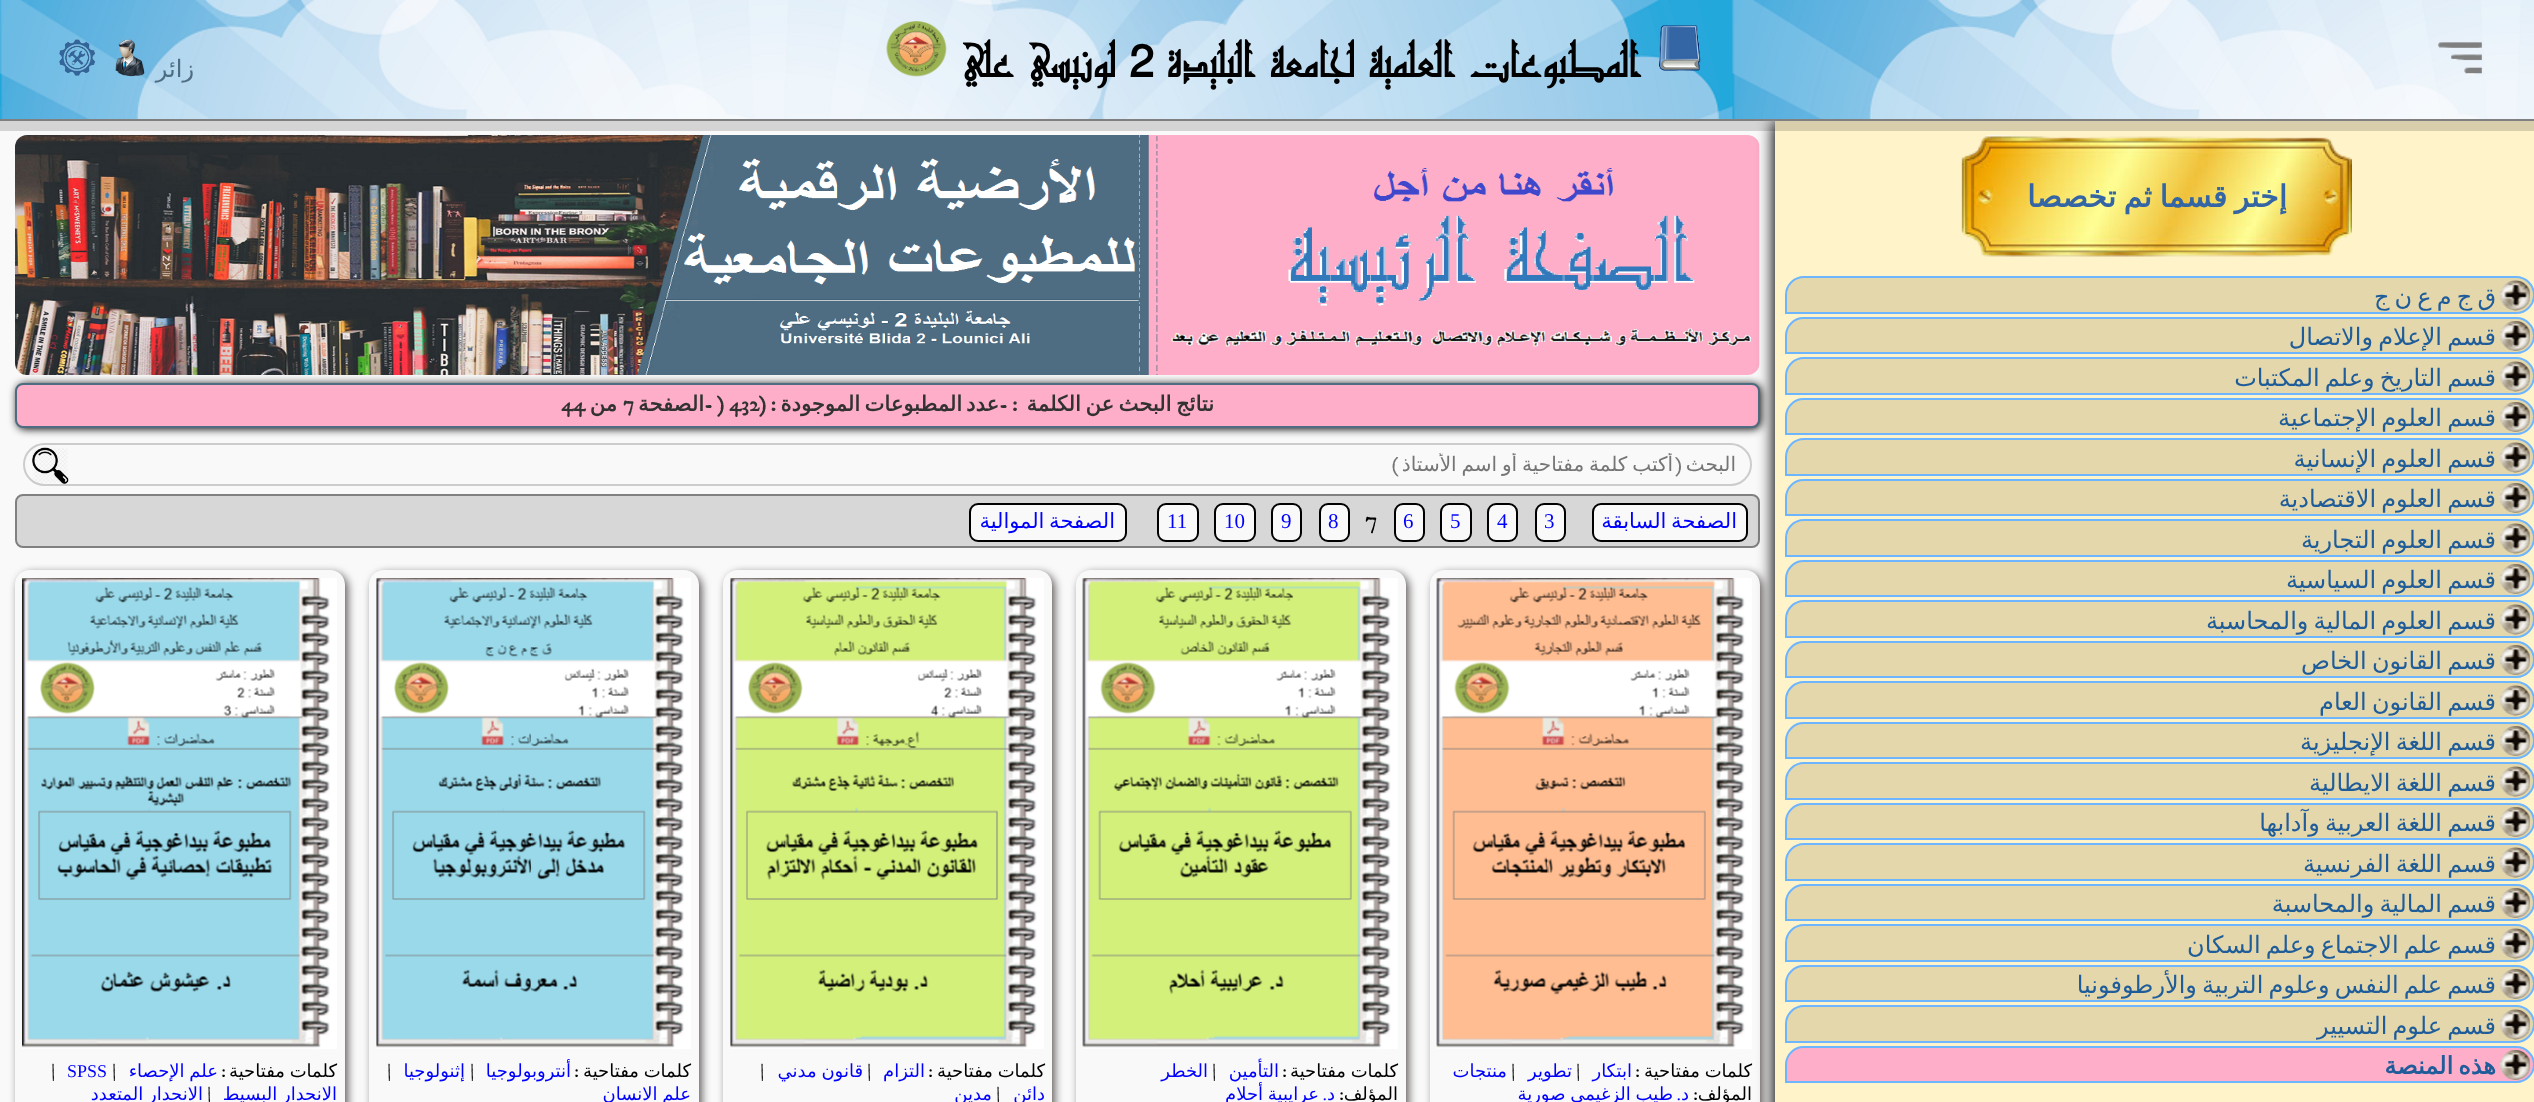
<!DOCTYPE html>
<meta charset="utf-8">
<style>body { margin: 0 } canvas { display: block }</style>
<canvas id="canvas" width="2534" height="1102"></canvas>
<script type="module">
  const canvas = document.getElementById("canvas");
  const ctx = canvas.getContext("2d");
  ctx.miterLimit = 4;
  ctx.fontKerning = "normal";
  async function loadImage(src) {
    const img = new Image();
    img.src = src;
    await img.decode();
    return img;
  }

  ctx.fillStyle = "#f9f9f9";
  ctx.fillRect(0, 0, 2534, 1102);
  ctx.fillStyle = "#060606";
  ctx.filter = "blur(4px)";
  ctx.beginPath();
  ctx.roundRect(17, 384, 1744, 45, 8);
  ctx.fill();
  ctx.filter = "none";
  ctx.drawImage(await loadImage("img12.png"), 15, 135, 1745, 240);
  ctx.fillStyle = "#ffaec9";
  ctx.beginPath();
  ctx.roundRect(16, 384, 1743, 43, 7);
  ctx.fill();
  ctx.strokeStyle = "#4e6d82";
  ctx.lineWidth = 2;
  ctx.stroke();
  ctx.beginPath();
  ctx.roundRect(24, 444, 1727, 41, 20.5);
  ctx.strokeStyle = "#cccccc";
  ctx.stroke();
  ctx.fillStyle = "#d7d7d7";
  ctx.beginPath();
  ctx.roundRect(16, 495, 1743, 52, 7);
  ctx.fill();
  ctx.strokeStyle = "#808080";
  ctx.stroke();
  ctx.fillStyle = "#000000";
  ctx.filter = "blur(7.5px)";
  ctx.beginPath();
  ctx.rect(1773, 122, 761, 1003);
  ctx.fill();
  ctx.filter = "none";
  ctx.fillStyle = "#fff3c9";
  ctx.fillRect(1775, 121, 759, 981);
  ctx.fillStyle = "rgba(0, 0, 0, 0.15)";
  ctx.fillRect(0, 121, 2534, 10);
  ctx.drawImage(await loadImage("img1.png"), 0, 0, 2534, 119);
  ctx.fillStyle = "#808080";
  ctx.fillRect(0, 119, 2534, 2);
  ctx.drawImage(await loadImage("img2.png"), 2438, 42, 44, 33);
  ctx.drawImage(await loadImage("img3.png"), 1659, 24, 42, 47);
  ctx.direction = "rtl";
  ctx.font = "bold 45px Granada";
  ctx.fillStyle = "#000000";
  ctx.fillText("المطبوعات العلمية لجامعة البليدة", 1642, 77);
  ctx.direction = "ltr";
  ctx.fillText("2", 1129, 77);
  ctx.direction = "rtl";
  ctx.fillText("لونيسي علي", 1116, 77);
  ctx.drawImage(await loadImage("img4.png"), 886, 21, 61, 56);
  ctx.font = "24px DejaVu Sans";
  ctx.fillStyle = "#4e6d82";
  ctx.fillText("زائر", 194, 77);
  ctx.drawImage(await loadImage("img5.png"), 115, 39, 30, 38);
  ctx.drawImage(await loadImage("img6.png"), 59, 39, 37, 37);
  ctx.drawImage(await loadImage("img7.png"), 1961, 135, 391, 122);
  ctx.wordSpacing = "-2px";
  ctx.font = "bold 30px DejaVu Sans";
  ctx.fillStyle = "#3465a4";
  ctx.fillText("إختر قسما ثم تخصصا", 2287, 207);
  ctx.fillStyle = "#e3d7ab";
  ctx.beginPath();
  ctx.moveTo(1804, 277);
  ctx.lineTo(2516, 277);
  ctx.bezierCurveTo(2526, 277, 2534, 285, 2534, 295);
  ctx.bezierCurveTo(2534, 305, 2526, 313, 2516, 313);
  ctx.lineTo(1786, 313);
  ctx.lineTo(1786, 295);
  ctx.bezierCurveTo(1786, 285, 1794, 277, 1804, 277);
  ctx.closePath();
  ctx.fill();
  ctx.strokeStyle = "#6db5ff";
  ctx.stroke();
  ctx.drawImage(await loadImage("img8.png"), 2500, 280, 30, 31);
  ctx.wordSpacing = "-2.5px";
  ctx.font = "24px DejaVu Sans";
  ctx.fillStyle = "#1f5c9a";
  ctx.fillText("ق ج م ع ن ج", 2496, 305);
  ctx.fillStyle = "#e3d7ab";
  ctx.beginPath();
  ctx.moveTo(1803.5, 318);
  ctx.lineTo(2516.5, 318);
  ctx.bezierCurveTo(2526, 318, 2534, 326, 2534, 335.5);
  ctx.bezierCurveTo(2534, 345, 2526, 353, 2516.5, 353);
  ctx.lineTo(1786, 353);
  ctx.lineTo(1786, 335.5);
  ctx.bezierCurveTo(1786, 326, 1794, 318, 1803.5, 318);
  ctx.closePath();
  ctx.fill();
  ctx.stroke();
  ctx.drawImage(await loadImage("img9.png"), 2500, 321, 30, 30);
  ctx.fillStyle = "#1f5c9a";
  ctx.fillText("قسم الإعلام والاتصال", 2496, 345);
  ctx.fillStyle = "#e3d7ab";
  ctx.beginPath();
  ctx.moveTo(1804, 358);
  ctx.lineTo(2516, 358);
  ctx.bezierCurveTo(2526, 358, 2534, 366, 2534, 376);
  ctx.bezierCurveTo(2534, 386, 2526, 394, 2516, 394);
  ctx.lineTo(1786, 394);
  ctx.lineTo(1786, 376);
  ctx.bezierCurveTo(1786, 366, 1794, 358, 1804, 358);
  ctx.closePath();
  ctx.fill();
  ctx.stroke();
  ctx.drawImage(await loadImage("img8.png"), 2500, 361, 30, 31);
  ctx.fillStyle = "#1f5c9a";
  ctx.fillText("قسم التاريخ وعلم المكتبات", 2496, 386);
  ctx.fillStyle = "#e3d7ab";
  ctx.beginPath();
  ctx.moveTo(1803.5, 399);
  ctx.lineTo(2516.5, 399);
  ctx.bezierCurveTo(2526, 399, 2534, 407, 2534, 416.5);
  ctx.bezierCurveTo(2534, 426, 2526, 434, 2516.5, 434);
  ctx.lineTo(1786, 434);
  ctx.lineTo(1786, 416.5);
  ctx.bezierCurveTo(1786, 407, 1794, 399, 1803.5, 399);
  ctx.closePath();
  ctx.fill();
  ctx.stroke();
  ctx.drawImage(await loadImage("img9.png"), 2500, 402, 30, 30);
  ctx.fillStyle = "#1f5c9a";
  ctx.fillText("قسم العلوم الإجتماعية", 2496, 426);
  ctx.fillStyle = "#e3d7ab";
  ctx.beginPath();
  ctx.moveTo(1804, 439);
  ctx.lineTo(2516, 439);
  ctx.bezierCurveTo(2526, 439, 2534, 447, 2534, 457);
  ctx.bezierCurveTo(2534, 467, 2526, 475, 2516, 475);
  ctx.lineTo(1786, 475);
  ctx.lineTo(1786, 457);
  ctx.bezierCurveTo(1786, 447, 1794, 439, 1804, 439);
  ctx.closePath();
  ctx.fill();
  ctx.stroke();
  ctx.drawImage(await loadImage("img8.png"), 2500, 442, 30, 31);
  ctx.fillStyle = "#1f5c9a";
  ctx.fillText("قسم العلوم الإنسانية", 2496, 467);
  ctx.fillStyle = "#e3d7ab";
  ctx.beginPath();
  ctx.moveTo(1803.5, 480);
  ctx.lineTo(2516.5, 480);
  ctx.bezierCurveTo(2526, 480, 2534, 488, 2534, 497.5);
  ctx.bezierCurveTo(2534, 507, 2526, 515, 2516.5, 515);
  ctx.lineTo(1786, 515);
  ctx.lineTo(1786, 497.5);
  ctx.bezierCurveTo(1786, 488, 1794, 480, 1803.5, 480);
  ctx.closePath();
  ctx.fill();
  ctx.stroke();
  ctx.drawImage(await loadImage("img9.png"), 2500, 483, 30, 30);
  ctx.fillStyle = "#1f5c9a";
  ctx.fillText("قسم العلوم الاقتصادية", 2496, 507);
  ctx.fillStyle = "#e3d7ab";
  ctx.beginPath();
  ctx.moveTo(1804, 520);
  ctx.lineTo(2516, 520);
  ctx.bezierCurveTo(2526, 520, 2534, 528, 2534, 538);
  ctx.bezierCurveTo(2534, 548, 2526, 556, 2516, 556);
  ctx.lineTo(1786, 556);
  ctx.lineTo(1786, 538);
  ctx.bezierCurveTo(1786, 528, 1794, 520, 1804, 520);
  ctx.closePath();
  ctx.fill();
  ctx.stroke();
  ctx.drawImage(await loadImage("img8.png"), 2500, 523, 30, 31);
  ctx.fillStyle = "#1f5c9a";
  ctx.fillText("قسم العلوم التجارية", 2496, 548);
  ctx.fillStyle = "#e3d7ab";
  ctx.beginPath();
  ctx.moveTo(1803.5, 561);
  ctx.lineTo(2516.5, 561);
  ctx.bezierCurveTo(2526, 561, 2534, 569, 2534, 578.5);
  ctx.bezierCurveTo(2534, 588, 2526, 596, 2516.5, 596);
  ctx.lineTo(1786, 596);
  ctx.lineTo(1786, 578.5);
  ctx.bezierCurveTo(1786, 569, 1794, 561, 1803.5, 561);
  ctx.closePath();
  ctx.fill();
  ctx.stroke();
  ctx.drawImage(await loadImage("img9.png"), 2500, 564, 30, 30);
  ctx.fillStyle = "#1f5c9a";
  ctx.fillText("قسم العلوم السياسية", 2496, 588);
  ctx.fillStyle = "#e3d7ab";
  ctx.beginPath();
  ctx.moveTo(1804, 601);
  ctx.lineTo(2516, 601);
  ctx.bezierCurveTo(2526, 601, 2534, 609, 2534, 619);
  ctx.bezierCurveTo(2534, 629, 2526, 637, 2516, 637);
  ctx.lineTo(1786, 637);
  ctx.lineTo(1786, 619);
  ctx.bezierCurveTo(1786, 609, 1794, 601, 1804, 601);
  ctx.closePath();
  ctx.fill();
  ctx.stroke();
  ctx.drawImage(await loadImage("img8.png"), 2500, 604, 30, 31);
  ctx.fillStyle = "#1f5c9a";
  ctx.fillText("قسم العلوم المالية والمحاسبة", 2496, 629);
  ctx.fillStyle = "#e3d7ab";
  ctx.beginPath();
  ctx.moveTo(1803.5, 642);
  ctx.lineTo(2516.5, 642);
  ctx.bezierCurveTo(2526, 642, 2534, 650, 2534, 659.5);
  ctx.bezierCurveTo(2534, 669, 2526, 677, 2516.5, 677);
  ctx.lineTo(1786, 677);
  ctx.lineTo(1786, 659.5);
  ctx.bezierCurveTo(1786, 650, 1794, 642, 1803.5, 642);
  ctx.closePath();
  ctx.fill();
  ctx.stroke();
  ctx.drawImage(await loadImage("img9.png"), 2500, 645, 30, 30);
  ctx.fillStyle = "#1f5c9a";
  ctx.fillText("قسم القانون الخاص", 2496, 669);
  ctx.fillStyle = "#e3d7ab";
  ctx.beginPath();
  ctx.moveTo(1804, 682);
  ctx.lineTo(2516, 682);
  ctx.bezierCurveTo(2526, 682, 2534, 690, 2534, 700);
  ctx.bezierCurveTo(2534, 710, 2526, 718, 2516, 718);
  ctx.lineTo(1786, 718);
  ctx.lineTo(1786, 700);
  ctx.bezierCurveTo(1786, 690, 1794, 682, 1804, 682);
  ctx.closePath();
  ctx.fill();
  ctx.stroke();
  ctx.drawImage(await loadImage("img8.png"), 2500, 685, 30, 31);
  ctx.fillStyle = "#1f5c9a";
  ctx.fillText("قسم القانون العام", 2496, 710);
  ctx.fillStyle = "#e3d7ab";
  ctx.beginPath();
  ctx.moveTo(1803.5, 723);
  ctx.lineTo(2516.5, 723);
  ctx.bezierCurveTo(2526, 723, 2534, 731, 2534, 740.5);
  ctx.bezierCurveTo(2534, 750, 2526, 758, 2516.5, 758);
  ctx.lineTo(1786, 758);
  ctx.lineTo(1786, 740.5);
  ctx.bezierCurveTo(1786, 731, 1794, 723, 1803.5, 723);
  ctx.closePath();
  ctx.fill();
  ctx.stroke();
  ctx.drawImage(await loadImage("img9.png"), 2500, 726, 30, 30);
  ctx.fillStyle = "#1f5c9a";
  ctx.fillText("قسم اللغة الإنجليزية", 2496, 750);
  ctx.fillStyle = "#e3d7ab";
  ctx.beginPath();
  ctx.moveTo(1804, 763);
  ctx.lineTo(2516, 763);
  ctx.bezierCurveTo(2526, 763, 2534, 771, 2534, 781);
  ctx.bezierCurveTo(2534, 791, 2526, 799, 2516, 799);
  ctx.lineTo(1786, 799);
  ctx.lineTo(1786, 781);
  ctx.bezierCurveTo(1786, 771, 1794, 763, 1804, 763);
  ctx.closePath();
  ctx.fill();
  ctx.stroke();
  ctx.drawImage(await loadImage("img10.png"), 2500, 766, 30, 31);
  ctx.fillStyle = "#1f5c9a";
  ctx.fillText("قسم اللغة الايطالية", 2496, 791);
  ctx.fillStyle = "#e3d7ab";
  ctx.beginPath();
  ctx.moveTo(1803.5, 804);
  ctx.lineTo(2516.5, 804);
  ctx.bezierCurveTo(2526, 804, 2534, 812, 2534, 821.5);
  ctx.bezierCurveTo(2534, 831, 2526, 839, 2516.5, 839);
  ctx.lineTo(1786, 839);
  ctx.lineTo(1786, 821.5);
  ctx.bezierCurveTo(1786, 812, 1794, 804, 1803.5, 804);
  ctx.closePath();
  ctx.fill();
  ctx.stroke();
  ctx.drawImage(await loadImage("img9.png"), 2500, 807, 30, 30);
  ctx.fillStyle = "#1f5c9a";
  ctx.fillText("قسم اللغة العربية وآدابها", 2496, 831);
  ctx.fillStyle = "#e3d7ab";
  ctx.beginPath();
  ctx.moveTo(1804, 844);
  ctx.lineTo(2516, 844);
  ctx.bezierCurveTo(2526, 844, 2534, 852, 2534, 862);
  ctx.bezierCurveTo(2534, 872, 2526, 880, 2516, 880);
  ctx.lineTo(1786, 880);
  ctx.lineTo(1786, 862);
  ctx.bezierCurveTo(1786, 852, 1794, 844, 1804, 844);
  ctx.closePath();
  ctx.fill();
  ctx.stroke();
  ctx.drawImage(await loadImage("img8.png"), 2500, 847, 30, 31);
  ctx.fillStyle = "#1f5c9a";
  ctx.fillText("قسم اللغة الفرنسية", 2496, 872);
  ctx.fillStyle = "#e3d7ab";
  ctx.beginPath();
  ctx.moveTo(1803.5, 885);
  ctx.lineTo(2516.5, 885);
  ctx.bezierCurveTo(2526, 885, 2534, 893, 2534, 902.5);
  ctx.bezierCurveTo(2534, 912, 2526, 920, 2516.5, 920);
  ctx.lineTo(1786, 920);
  ctx.lineTo(1786, 902.5);
  ctx.bezierCurveTo(1786, 893, 1794, 885, 1803.5, 885);
  ctx.closePath();
  ctx.fill();
  ctx.stroke();
  ctx.drawImage(await loadImage("img9.png"), 2500, 888, 30, 30);
  ctx.fillStyle = "#1f5c9a";
  ctx.fillText("قسم المالية والمحاسبة", 2496, 912);
  ctx.fillStyle = "#e3d7ab";
  ctx.beginPath();
  ctx.moveTo(1804, 925);
  ctx.lineTo(2516, 925);
  ctx.bezierCurveTo(2526, 925, 2534, 933, 2534, 943);
  ctx.bezierCurveTo(2534, 953, 2526, 961, 2516, 961);
  ctx.lineTo(1786, 961);
  ctx.lineTo(1786, 943);
  ctx.bezierCurveTo(1786, 933, 1794, 925, 1804, 925);
  ctx.closePath();
  ctx.fill();
  ctx.stroke();
  ctx.drawImage(await loadImage("img8.png"), 2500, 928, 30, 31);
  ctx.fillStyle = "#1f5c9a";
  ctx.fillText("قسم علم الاجتماع وعلم السكان", 2496, 953);
  ctx.fillStyle = "#e3d7ab";
  ctx.beginPath();
  ctx.moveTo(1803.5, 966);
  ctx.lineTo(2516.5, 966);
  ctx.bezierCurveTo(2526, 966, 2534, 974, 2534, 983.5);
  ctx.bezierCurveTo(2534, 993, 2526, 1001, 2516.5, 1001);
  ctx.lineTo(1786, 1001);
  ctx.lineTo(1786, 983.5);
  ctx.bezierCurveTo(1786, 974, 1794, 966, 1803.5, 966);
  ctx.closePath();
  ctx.fill();
  ctx.stroke();
  ctx.drawImage(await loadImage("img9.png"), 2500, 969, 30, 30);
  ctx.fillStyle = "#1f5c9a";
  ctx.fillText("قسم علم النفس وعلوم التربية والأرطوفونيا", 2496, 993);
  ctx.fillStyle = "#e3d7ab";
  ctx.beginPath();
  ctx.moveTo(1804, 1006);
  ctx.lineTo(2516, 1006);
  ctx.bezierCurveTo(2526, 1006, 2534, 1014, 2534, 1024);
  ctx.bezierCurveTo(2534, 1034, 2526, 1042, 2516, 1042);
  ctx.lineTo(1786, 1042);
  ctx.lineTo(1786, 1024);
  ctx.bezierCurveTo(1786, 1014, 1794, 1006, 1804, 1006);
  ctx.closePath();
  ctx.fill();
  ctx.stroke();
  ctx.drawImage(await loadImage("img8.png"), 2500, 1009, 30, 31);
  ctx.fillStyle = "#1f5c9a";
  ctx.fillText("قسم علوم التسيير", 2496, 1034);
  ctx.fillStyle = "#ffaec9";
  ctx.beginPath();
  ctx.moveTo(1803.5, 1047);
  ctx.lineTo(2516.5, 1047);
  ctx.bezierCurveTo(2526, 1047, 2534, 1055, 2534, 1064.5);
  ctx.bezierCurveTo(2534, 1074, 2526, 1082, 2516.5, 1082);
  ctx.lineTo(1786, 1082);
  ctx.lineTo(1786, 1064.5);
  ctx.bezierCurveTo(1786, 1055, 1794, 1047, 1803.5, 1047);
  ctx.closePath();
  ctx.fill();
  ctx.stroke();
  ctx.drawImage(await loadImage("img11.png"), 2500, 1050, 30, 30);
  ctx.font = "bold 24px DejaVu Sans";
  ctx.fillStyle = "#1f5c9a";
  ctx.fillText("هذه المنصة", 2496, 1074);
  ctx.wordSpacing = "-2px";
  ctx.font = "bold 21px DejaVu Sans";
  ctx.fillStyle = "#323232";
  ctx.fillText("نتائج البحث عن الكلمة", 1214, 411);
  ctx.wordSpacing = "0px";
  ctx.direction = "ltr";
  ctx.font = "bold 21px IM FELL DW Pica";
  ctx.fillText(":", 1012, 411);
  ctx.fillText("-", 999, 411);
  ctx.direction = "rtl";
  ctx.font = "bold 21px DejaVu Sans";
  ctx.fillText("عدد", 999, 411);
  ctx.fillText("المطبوعات", 962, 411);
  ctx.fillText("الموجودة", 860, 411);
  ctx.font = "bold 21px IM FELL DW Pica";
  ctx.fillText(": (", 776, 411);
  ctx.direction = "ltr";
  ctx.fillText("432", 729, 411);
  ctx.fillText(")", 717, 411);
  ctx.fillText("-", 704, 411);
  ctx.direction = "rtl";
  ctx.font = "bold 21px DejaVu Sans";
  ctx.fillText("الصفحة", 704, 411);
  ctx.direction = "ltr";
  ctx.font = "bold 21px IM FELL DW Pica";
  ctx.fillText("7", 623, 411);
  ctx.direction = "rtl";
  ctx.font = "bold 21px DejaVu Sans";
  ctx.fillText("من", 617, 411);
  ctx.direction = "ltr";
  ctx.font = "bold 21px IM FELL DW Pica";
  ctx.fillText("44", 561, 411);
  ctx.direction = "rtl";
  ctx.font = "20px DejaVu Sans";
  ctx.fillStyle = "#757575";
  ctx.fillText("البحث", 1736, 471);
  ctx.font = "20px IM FELL DW Pica";
  ctx.fillText("(", 1682, 471);
  ctx.save();
  ctx.beginPath();
  ctx.rect(69, 453, 1667, 26);
  ctx.clip();
  ctx.wordSpacing = "-1.5px";
  ctx.font = "20px DejaVu Sans";
  ctx.fillText("أكتب كلمة مفتاحية أو اسم الأستاذ", 1673, 471);
  ctx.restore();
  ctx.fillText(")", 1398, 471);
  ctx.drawImage(await loadImage("img13.png"), 32, 447, 37, 37);
  ctx.fillStyle = "#f9f9f9";
  ctx.beginPath();
  ctx.roundRect(1593, 504, 154, 37, 8);
  ctx.fill();
  ctx.strokeStyle = "#000000";
  ctx.stroke();
  ctx.wordSpacing = "-2px";
  ctx.font = "21px DejaVu Sans";
  ctx.fillStyle = "#0000ff";
  ctx.fillText("الصفحة السابقة", 1737, 528);
  ctx.fillStyle = "#f9f9f9";
  ctx.beginPath();
  ctx.roundRect(1536, 504, 29, 37, 8);
  ctx.fill();
  ctx.stroke();
  ctx.wordSpacing = "0px";
  ctx.direction = "ltr";
  ctx.font = "21px Liberation Serif";
  ctx.fillStyle = "#0000ff";
  ctx.fillText("3", 1544, 528);
  ctx.fillStyle = "#f9f9f9";
  ctx.beginPath();
  ctx.roundRect(1488, 504, 29, 37, 8);
  ctx.fill();
  ctx.stroke();
  ctx.fillStyle = "#0000ff";
  ctx.fillText("4", 1497, 528);
  ctx.fillStyle = "#f9f9f9";
  ctx.beginPath();
  ctx.roundRect(1441, 504, 30, 37, 8);
  ctx.fill();
  ctx.stroke();
  ctx.fillStyle = "#0000ff";
  ctx.fillText("5", 1450, 528);
  ctx.fillStyle = "#f9f9f9";
  ctx.beginPath();
  ctx.roundRect(1395, 504, 29, 37, 8);
  ctx.fill();
  ctx.stroke();
  ctx.fillStyle = "#0000ff";
  ctx.fillText("6", 1403, 528);
  ctx.font = "24px IM FELL DW Pica";
  ctx.fillStyle = "#000000";
  ctx.fillText("7", 1365, 528);
  ctx.fillStyle = "#f9f9f9";
  ctx.beginPath();
  ctx.roundRect(1320, 504, 29, 37, 8);
  ctx.fill();
  ctx.stroke();
  ctx.font = "21px Liberation Serif";
  ctx.fillStyle = "#0000ff";
  ctx.fillText("8", 1328, 528);
  ctx.fillStyle = "#f9f9f9";
  ctx.beginPath();
  ctx.roundRect(1272, 504, 29, 37, 8);
  ctx.fill();
  ctx.stroke();
  ctx.fillStyle = "#0000ff";
  ctx.fillText("9", 1281, 528);
  ctx.fillStyle = "#f9f9f9";
  ctx.beginPath();
  ctx.roundRect(1215, 504, 40, 37, 8);
  ctx.fill();
  ctx.stroke();
  ctx.fillStyle = "#0000ff";
  ctx.fillText("10", 1224, 528);
  ctx.fillStyle = "#f9f9f9";
  ctx.beginPath();
  ctx.roundRect(1158, 504, 40, 37, 8);
  ctx.fill();
  ctx.stroke();
  ctx.fillStyle = "#0000ff";
  ctx.fillText("11", 1167, 528);
  ctx.fillStyle = "#f9f9f9";
  ctx.beginPath();
  ctx.roundRect(970, 504, 156, 37, 8);
  ctx.fill();
  ctx.stroke();
  ctx.wordSpacing = "-2px";
  ctx.direction = "rtl";
  ctx.font = "21px DejaVu Sans";
  ctx.fillStyle = "#0000ff";
  ctx.fillText("الصفحة الموالية", 1115, 528);
  ctx.save();
  ctx.beginPath();
  ctx.moveTo(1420, 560);
  ctx.lineTo(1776, 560);
  ctx.lineTo(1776, 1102);
  ctx.lineTo(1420, 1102);
  ctx.closePath();
  ctx.moveTo(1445, 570);
  ctx.lineTo(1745, 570);
  ctx.bezierCurveTo(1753.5, 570, 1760, 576.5, 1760, 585);
  ctx.lineTo(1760, 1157);
  ctx.bezierCurveTo(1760, 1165.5, 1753.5, 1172, 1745, 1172);
  ctx.lineTo(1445, 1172);
  ctx.bezierCurveTo(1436.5, 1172, 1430, 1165.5, 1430, 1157);
  ctx.lineTo(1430, 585);
  ctx.bezierCurveTo(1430, 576.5, 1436.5, 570, 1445, 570);
  ctx.closePath();
  ctx.clip("evenodd");
  ctx.fillStyle = "#645e5e";
  ctx.filter = "blur(4px)";
  ctx.beginPath();
  ctx.roundRect(1433, 573, 330, 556, 15);
  ctx.fill();
  ctx.filter = "none";
  ctx.restore();
  ctx.drawImage(await loadImage("img14.png"), 1436, 578, 316, 471);
  ctx.wordSpacing = "-1px";
  ctx.font = "18px DejaVu Sans";
  ctx.fillStyle = "#000000";
  ctx.fillText("كلمات مفتاحية", 1752, 1077);
  ctx.wordSpacing = "0px";
  ctx.font = "18px IM FELL DW Pica";
  ctx.fillText(":", 1640, 1077);
  ctx.font = "18px DejaVu Sans";
  ctx.fillStyle = "#0000ff";
  ctx.fillText("ابتكار", 1632, 1077);
  ctx.direction = "ltr";
  ctx.font = "18px IM FELL DW Pica";
  ctx.fillStyle = "#000000";
  ctx.fillText("|", 1576, 1077);
  ctx.direction = "rtl";
  ctx.font = "18px DejaVu Sans";
  ctx.fillStyle = "#0000ff";
  ctx.fillText("تطوير", 1572, 1077);
  ctx.direction = "ltr";
  ctx.font = "18px IM FELL DW Pica";
  ctx.fillStyle = "#000000";
  ctx.fillText("|", 1511, 1077);
  ctx.direction = "rtl";
  ctx.font = "18px DejaVu Sans";
  ctx.fillStyle = "#0000ff";
  ctx.fillText("منتجات", 1507, 1077);
  ctx.fillStyle = "#000000";
  ctx.fillText("المؤلف", 1752, 1100);
  ctx.font = "18px IM FELL DW Pica";
  ctx.fillText(":", 1698, 1100);
  ctx.font = "18px DejaVu Sans";
  ctx.fillStyle = "#0000ff";
  ctx.fillText("د", 1689, 1100);
  ctx.font = "18px Liberation Serif";
  ctx.fillText(".", 1681, 1100);
  ctx.wordSpacing = "-1px";
  ctx.font = "18px DejaVu Sans";
  ctx.fillText("طيب الزغيمي صورية", 1673, 1100);
  ctx.save();
  ctx.beginPath();
  ctx.moveTo(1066, 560);
  ctx.lineTo(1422, 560);
  ctx.lineTo(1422, 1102);
  ctx.lineTo(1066, 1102);
  ctx.closePath();
  ctx.moveTo(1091, 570);
  ctx.lineTo(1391, 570);
  ctx.bezierCurveTo(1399.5, 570, 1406, 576.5, 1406, 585);
  ctx.lineTo(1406, 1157);
  ctx.bezierCurveTo(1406, 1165.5, 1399.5, 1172, 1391, 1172);
  ctx.lineTo(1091, 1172);
  ctx.bezierCurveTo(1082.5, 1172, 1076, 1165.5, 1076, 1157);
  ctx.lineTo(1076, 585);
  ctx.bezierCurveTo(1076, 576.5, 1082.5, 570, 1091, 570);
  ctx.closePath();
  ctx.clip("evenodd");
  ctx.fillStyle = "#645e5e";
  ctx.filter = "blur(4px)";
  ctx.beginPath();
  ctx.roundRect(1079, 573, 330, 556, 15);
  ctx.fill();
  ctx.filter = "none";
  ctx.restore();
  ctx.drawImage(await loadImage("img15.png"), 1082, 578, 316, 471);
  ctx.fillStyle = "#000000";
  ctx.fillText("كلمات مفتاحية", 1398, 1077);
  ctx.wordSpacing = "0px";
  ctx.font = "18px IM FELL DW Pica";
  ctx.fillText(":", 1287, 1077);
  ctx.font = "18px DejaVu Sans";
  ctx.fillStyle = "#0000ff";
  ctx.fillText("التأمين", 1279, 1077);
  ctx.direction = "ltr";
  ctx.font = "18px IM FELL DW Pica";
  ctx.fillStyle = "#000000";
  ctx.fillText("|", 1212, 1077);
  ctx.direction = "rtl";
  ctx.font = "18px DejaVu Sans";
  ctx.fillStyle = "#0000ff";
  ctx.fillText("الخطر", 1208, 1077);
  ctx.fillStyle = "#000000";
  ctx.fillText("المؤلف", 1398, 1100);
  ctx.font = "18px IM FELL DW Pica";
  ctx.fillText(":", 1344, 1100);
  ctx.font = "18px DejaVu Sans";
  ctx.fillStyle = "#0000ff";
  ctx.fillText("د", 1335, 1100);
  ctx.font = "18px Liberation Serif";
  ctx.fillText(".", 1327, 1100);
  ctx.wordSpacing = "-1px";
  ctx.font = "18px DejaVu Sans";
  ctx.fillText("عرايبية أحلام", 1319, 1100);
  ctx.save();
  ctx.beginPath();
  ctx.moveTo(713, 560);
  ctx.lineTo(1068, 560);
  ctx.lineTo(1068, 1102);
  ctx.lineTo(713, 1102);
  ctx.closePath();
  ctx.moveTo(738, 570);
  ctx.lineTo(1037, 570);
  ctx.bezierCurveTo(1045.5, 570, 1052, 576.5, 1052, 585);
  ctx.lineTo(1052, 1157);
  ctx.bezierCurveTo(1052, 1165.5, 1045.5, 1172, 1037, 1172);
  ctx.lineTo(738, 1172);
  ctx.bezierCurveTo(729.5, 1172, 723, 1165.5, 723, 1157);
  ctx.lineTo(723, 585);
  ctx.bezierCurveTo(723, 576.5, 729.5, 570, 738, 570);
  ctx.closePath();
  ctx.clip("evenodd");
  ctx.fillStyle = "#645e5e";
  ctx.filter = "blur(4px)";
  ctx.beginPath();
  ctx.roundRect(726, 573, 329, 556, 15);
  ctx.fill();
  ctx.filter = "none";
  ctx.restore();
  ctx.drawImage(await loadImage("img16.png"), 730, 578, 314, 471);
  ctx.fillStyle = "#000000";
  ctx.fillText("كلمات مفتاحية", 1045, 1077);
  ctx.wordSpacing = "0px";
  ctx.font = "18px IM FELL DW Pica";
  ctx.fillText(":", 933, 1077);
  ctx.font = "18px DejaVu Sans";
  ctx.fillStyle = "#0000ff";
  ctx.fillText("التزام", 925, 1077);
  ctx.direction = "ltr";
  ctx.font = "18px IM FELL DW Pica";
  ctx.fillStyle = "#000000";
  ctx.fillText("|", 867, 1077);
  ctx.wordSpacing = "-1px";
  ctx.direction = "rtl";
  ctx.font = "18px DejaVu Sans";
  ctx.fillStyle = "#0000ff";
  ctx.fillText("قانون مدني", 863, 1077);
  ctx.wordSpacing = "0px";
  ctx.direction = "ltr";
  ctx.font = "18px IM FELL DW Pica";
  ctx.fillStyle = "#000000";
  ctx.fillText("|", 760, 1077);
  ctx.direction = "rtl";
  ctx.font = "18px DejaVu Sans";
  ctx.fillStyle = "#0000ff";
  ctx.fillText("دائن", 1045, 1100);
  ctx.direction = "ltr";
  ctx.font = "18px IM FELL DW Pica";
  ctx.fillStyle = "#000000";
  ctx.fillText("|", 996, 1100);
  ctx.direction = "rtl";
  ctx.font = "18px DejaVu Sans";
  ctx.fillStyle = "#0000ff";
  ctx.fillText("مدين", 992, 1100);
  ctx.save();
  ctx.beginPath();
  ctx.moveTo(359, 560);
  ctx.lineTo(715, 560);
  ctx.lineTo(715, 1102);
  ctx.lineTo(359, 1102);
  ctx.closePath();
  ctx.moveTo(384, 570);
  ctx.lineTo(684, 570);
  ctx.bezierCurveTo(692.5, 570, 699, 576.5, 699, 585);
  ctx.lineTo(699, 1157);
  ctx.bezierCurveTo(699, 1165.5, 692.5, 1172, 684, 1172);
  ctx.lineTo(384, 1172);
  ctx.bezierCurveTo(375.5, 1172, 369, 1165.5, 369, 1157);
  ctx.lineTo(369, 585);
  ctx.bezierCurveTo(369, 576.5, 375.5, 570, 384, 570);
  ctx.closePath();
  ctx.clip("evenodd");
  ctx.fillStyle = "#645e5e";
  ctx.filter = "blur(4px)";
  ctx.beginPath();
  ctx.roundRect(372, 573, 330, 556, 15);
  ctx.fill();
  ctx.filter = "none";
  ctx.restore();
  ctx.drawImage(await loadImage("img17.png"), 376, 578, 315, 471);
  ctx.wordSpacing = "-1px";
  ctx.fillStyle = "#000000";
  ctx.fillText("كلمات مفتاحية", 691, 1077);
  ctx.wordSpacing = "0px";
  ctx.font = "18px IM FELL DW Pica";
  ctx.fillText(":", 579, 1077);
  ctx.font = "18px DejaVu Sans";
  ctx.fillStyle = "#0000ff";
  ctx.fillText("أنتروبولوجيا", 571, 1077);
  ctx.direction = "ltr";
  ctx.font = "18px IM FELL DW Pica";
  ctx.fillStyle = "#000000";
  ctx.fillText("|", 470, 1077);
  ctx.direction = "rtl";
  ctx.font = "18px DejaVu Sans";
  ctx.fillStyle = "#0000ff";
  ctx.fillText("إثنولوجيا", 465, 1077);
  ctx.direction = "ltr";
  ctx.font = "18px IM FELL DW Pica";
  ctx.fillStyle = "#000000";
  ctx.fillText("|", 387, 1077);
  ctx.wordSpacing = "-1px";
  ctx.direction = "rtl";
  ctx.font = "18px DejaVu Sans";
  ctx.fillStyle = "#0000ff";
  ctx.fillText("علم الانسان", 691, 1100);
  ctx.save();
  ctx.beginPath();
  ctx.moveTo(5, 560);
  ctx.lineTo(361, 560);
  ctx.lineTo(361, 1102);
  ctx.lineTo(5, 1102);
  ctx.closePath();
  ctx.moveTo(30, 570);
  ctx.lineTo(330, 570);
  ctx.bezierCurveTo(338.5, 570, 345, 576.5, 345, 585);
  ctx.lineTo(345, 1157);
  ctx.bezierCurveTo(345, 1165.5, 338.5, 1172, 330, 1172);
  ctx.lineTo(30, 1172);
  ctx.bezierCurveTo(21.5, 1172, 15, 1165.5, 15, 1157);
  ctx.lineTo(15, 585);
  ctx.bezierCurveTo(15, 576.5, 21.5, 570, 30, 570);
  ctx.closePath();
  ctx.clip("evenodd");
  ctx.fillStyle = "#645e5e";
  ctx.filter = "blur(4px)";
  ctx.beginPath();
  ctx.roundRect(18, 573, 330, 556, 15);
  ctx.fill();
  ctx.filter = "none";
  ctx.restore();
  ctx.drawImage(await loadImage("img18.png"), 22, 578, 315, 471);
  ctx.fillStyle = "#000000";
  ctx.fillText("كلمات مفتاحية", 337, 1077);
  ctx.wordSpacing = "0px";
  ctx.font = "18px IM FELL DW Pica";
  ctx.fillText(":", 226, 1077);
  ctx.wordSpacing = "-1px";
  ctx.font = "18px DejaVu Sans";
  ctx.fillStyle = "#0000ff";
  ctx.fillText("علم الإحصاء", 218, 1077);
  ctx.wordSpacing = "0px";
  ctx.direction = "ltr";
  ctx.font = "18px IM FELL DW Pica";
  ctx.fillStyle = "#000000";
  ctx.fillText("|", 112, 1077);
  ctx.font = "18px Liberation Serif";
  ctx.fillStyle = "#0000ff";
  ctx.fillText("SPSS", 67, 1077);
  ctx.font = "18px IM FELL DW Pica";
  ctx.fillStyle = "#000000";
  ctx.fillText("|", 51, 1077);
  ctx.wordSpacing = "-1px";
  ctx.direction = "rtl";
  ctx.font = "18px DejaVu Sans";
  ctx.fillStyle = "#0000ff";
  ctx.fillText("الانحدار البسيط", 337, 1100);
  ctx.wordSpacing = "0px";
  ctx.direction = "ltr";
  ctx.font = "18px IM FELL DW Pica";
  ctx.fillStyle = "#000000";
  ctx.fillText("|", 207, 1100);
  ctx.wordSpacing = "-1px";
  ctx.direction = "rtl";
  ctx.font = "18px DejaVu Sans";
  ctx.fillStyle = "#0000ff";
  ctx.fillText("الانحدار المتعدد", 203, 1100);
</script>
